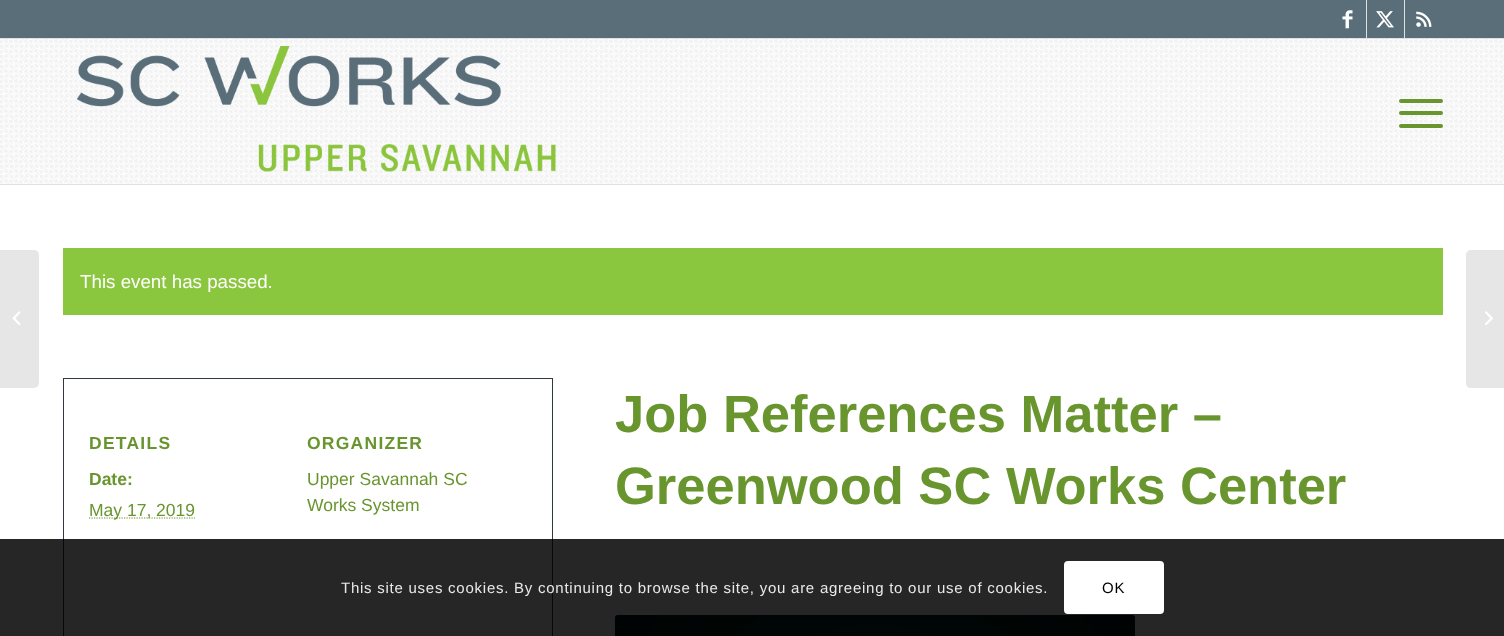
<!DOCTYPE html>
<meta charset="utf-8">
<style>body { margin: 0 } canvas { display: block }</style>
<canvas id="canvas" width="1504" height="636"></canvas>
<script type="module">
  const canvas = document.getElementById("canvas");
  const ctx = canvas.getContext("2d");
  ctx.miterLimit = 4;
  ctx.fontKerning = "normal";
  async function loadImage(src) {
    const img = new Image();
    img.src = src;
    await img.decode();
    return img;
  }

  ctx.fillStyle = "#ffffff";
  ctx.fillRect(0, 0, 1504, 636);
  ctx.fillStyle = "#e6e6e6";
  ctx.beginPath();
  ctx.roundRect(0, 250, 39, 138, [0, 5, 5, 0]);
  ctx.fill();
  ctx.drawImage(await loadImage("img1.png"), 12, 311, 9, 14);
  ctx.fillStyle = "#5a6e7a";
  ctx.fillRect(0, 0, 1504, 38);
  ctx.fillStyle = "#dee2e5";
  ctx.fillRect(0, 38, 1504, 1);
  ctx.fillRect(1366, 0, 1, 38);
  ctx.drawImage(await loadImage("img2.png"), 1342, 10, 11, 19);
  ctx.fillRect(1404, 0, 1, 38);
  ctx.drawImage(await loadImage("img3.png"), 1376, 11, 18, 17);
  ctx.drawImage(await loadImage("img4.png"), 1416, 11, 16, 16);
  ctx.drawImage(await loadImage("img5.png"), 0, 39, 1504, 145);
  ctx.fillRect(0, 184, 1504, 1);
  ctx.drawImage(await loadImage("img6.png"), 77, 46, 479, 126);
  ctx.fillStyle = "#69952f";
  ctx.beginPath();
  ctx.roundRect(1399, 111, 44, 4, 2);
  ctx.fill();
  ctx.beginPath();
  ctx.roundRect(1399, 99, 44, 4, 2);
  ctx.fill();
  ctx.beginPath();
  ctx.roundRect(1399, 124, 44, 4, 2);
  ctx.fill();
  ctx.fillStyle = "#8bc63f";
  ctx.fillRect(63, 248, 1380, 67);
  ctx.font = "18.75px Liberation Sans";
  ctx.fillStyle = "#ffffff";
  ctx.fillText("This event has passed.", 80, 288);
  ctx.strokeStyle = "#313a40";
  ctx.strokeRect(63.5, 378.5, 489, 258);
  ctx.letterSpacing = "1.25px";
  ctx.font = "bold 17.5px Liberation Sans";
  ctx.fillStyle = "#69952f";
  ctx.fillText("DETAILS", 89, 449);
  ctx.letterSpacing = "0px";
  ctx.fillText("Date:", 89, 485);
  ctx.beginPath();
  ctx.moveTo(89, 518);
  ctx.lineTo(195, 518);
  ctx.strokeStyle = "#69952f";
  ctx.lineWidth = 1.2;
  ctx.setLineDash([1.25, 1.25]);
  ctx.stroke();
  ctx.font = "17.5px Liberation Sans";
  ctx.fillText("May 17, 2019", 89, 516);
  ctx.letterSpacing = "1.25px";
  ctx.font = "bold 17.5px Liberation Sans";
  ctx.fillText("ORGANIZER", 307, 449);
  ctx.letterSpacing = "0px";
  ctx.font = "17.5px Liberation Sans";
  ctx.fillText("Upper Savannah SC", 307, 485);
  ctx.fillText("Works System", 307, 511);
  ctx.font = "bold 52.5px Liberation Sans";
  ctx.fillText("Job References Matter –", 615, 432);
  ctx.fillText("Greenwood SC Works Center", 615, 504);
  ctx.drawImage(await loadImage("img7.png"), 615, 615, 520, 21);
  ctx.fillStyle = "#e6e6e6";
  ctx.beginPath();
  ctx.moveTo(1471, 250);
  ctx.lineTo(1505, 250);
  ctx.lineTo(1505, 388);
  ctx.lineTo(1471, 388);
  ctx.bezierCurveTo(1468, 388, 1466, 386, 1466, 383);
  ctx.lineTo(1466, 255);
  ctx.bezierCurveTo(1466, 252, 1468, 250, 1471, 250);
  ctx.closePath();
  ctx.fill();
  ctx.drawImage(await loadImage("img8.png"), 1485, 311, 8, 14);
  ctx.fillStyle = "rgba(0, 0, 0, 0.85)";
  ctx.fillRect(0, 539, 1504, 97);
  ctx.letterSpacing = "0.75px";
  ctx.font = "15px Liberation Sans";
  ctx.fillStyle = "#e9e9e9";
  ctx.fillText("This site uses cookies. By continuing to browse the site, you are agreeing to our use of cookies.", 341, 593);
  ctx.fillStyle = "#ffffff";
  ctx.beginPath();
  ctx.roundRect(1064, 561, 100, 53, 4);
  ctx.fill();
  ctx.fillStyle = "#000000";
  ctx.fillText("OK", 1102, 593);
</script>
